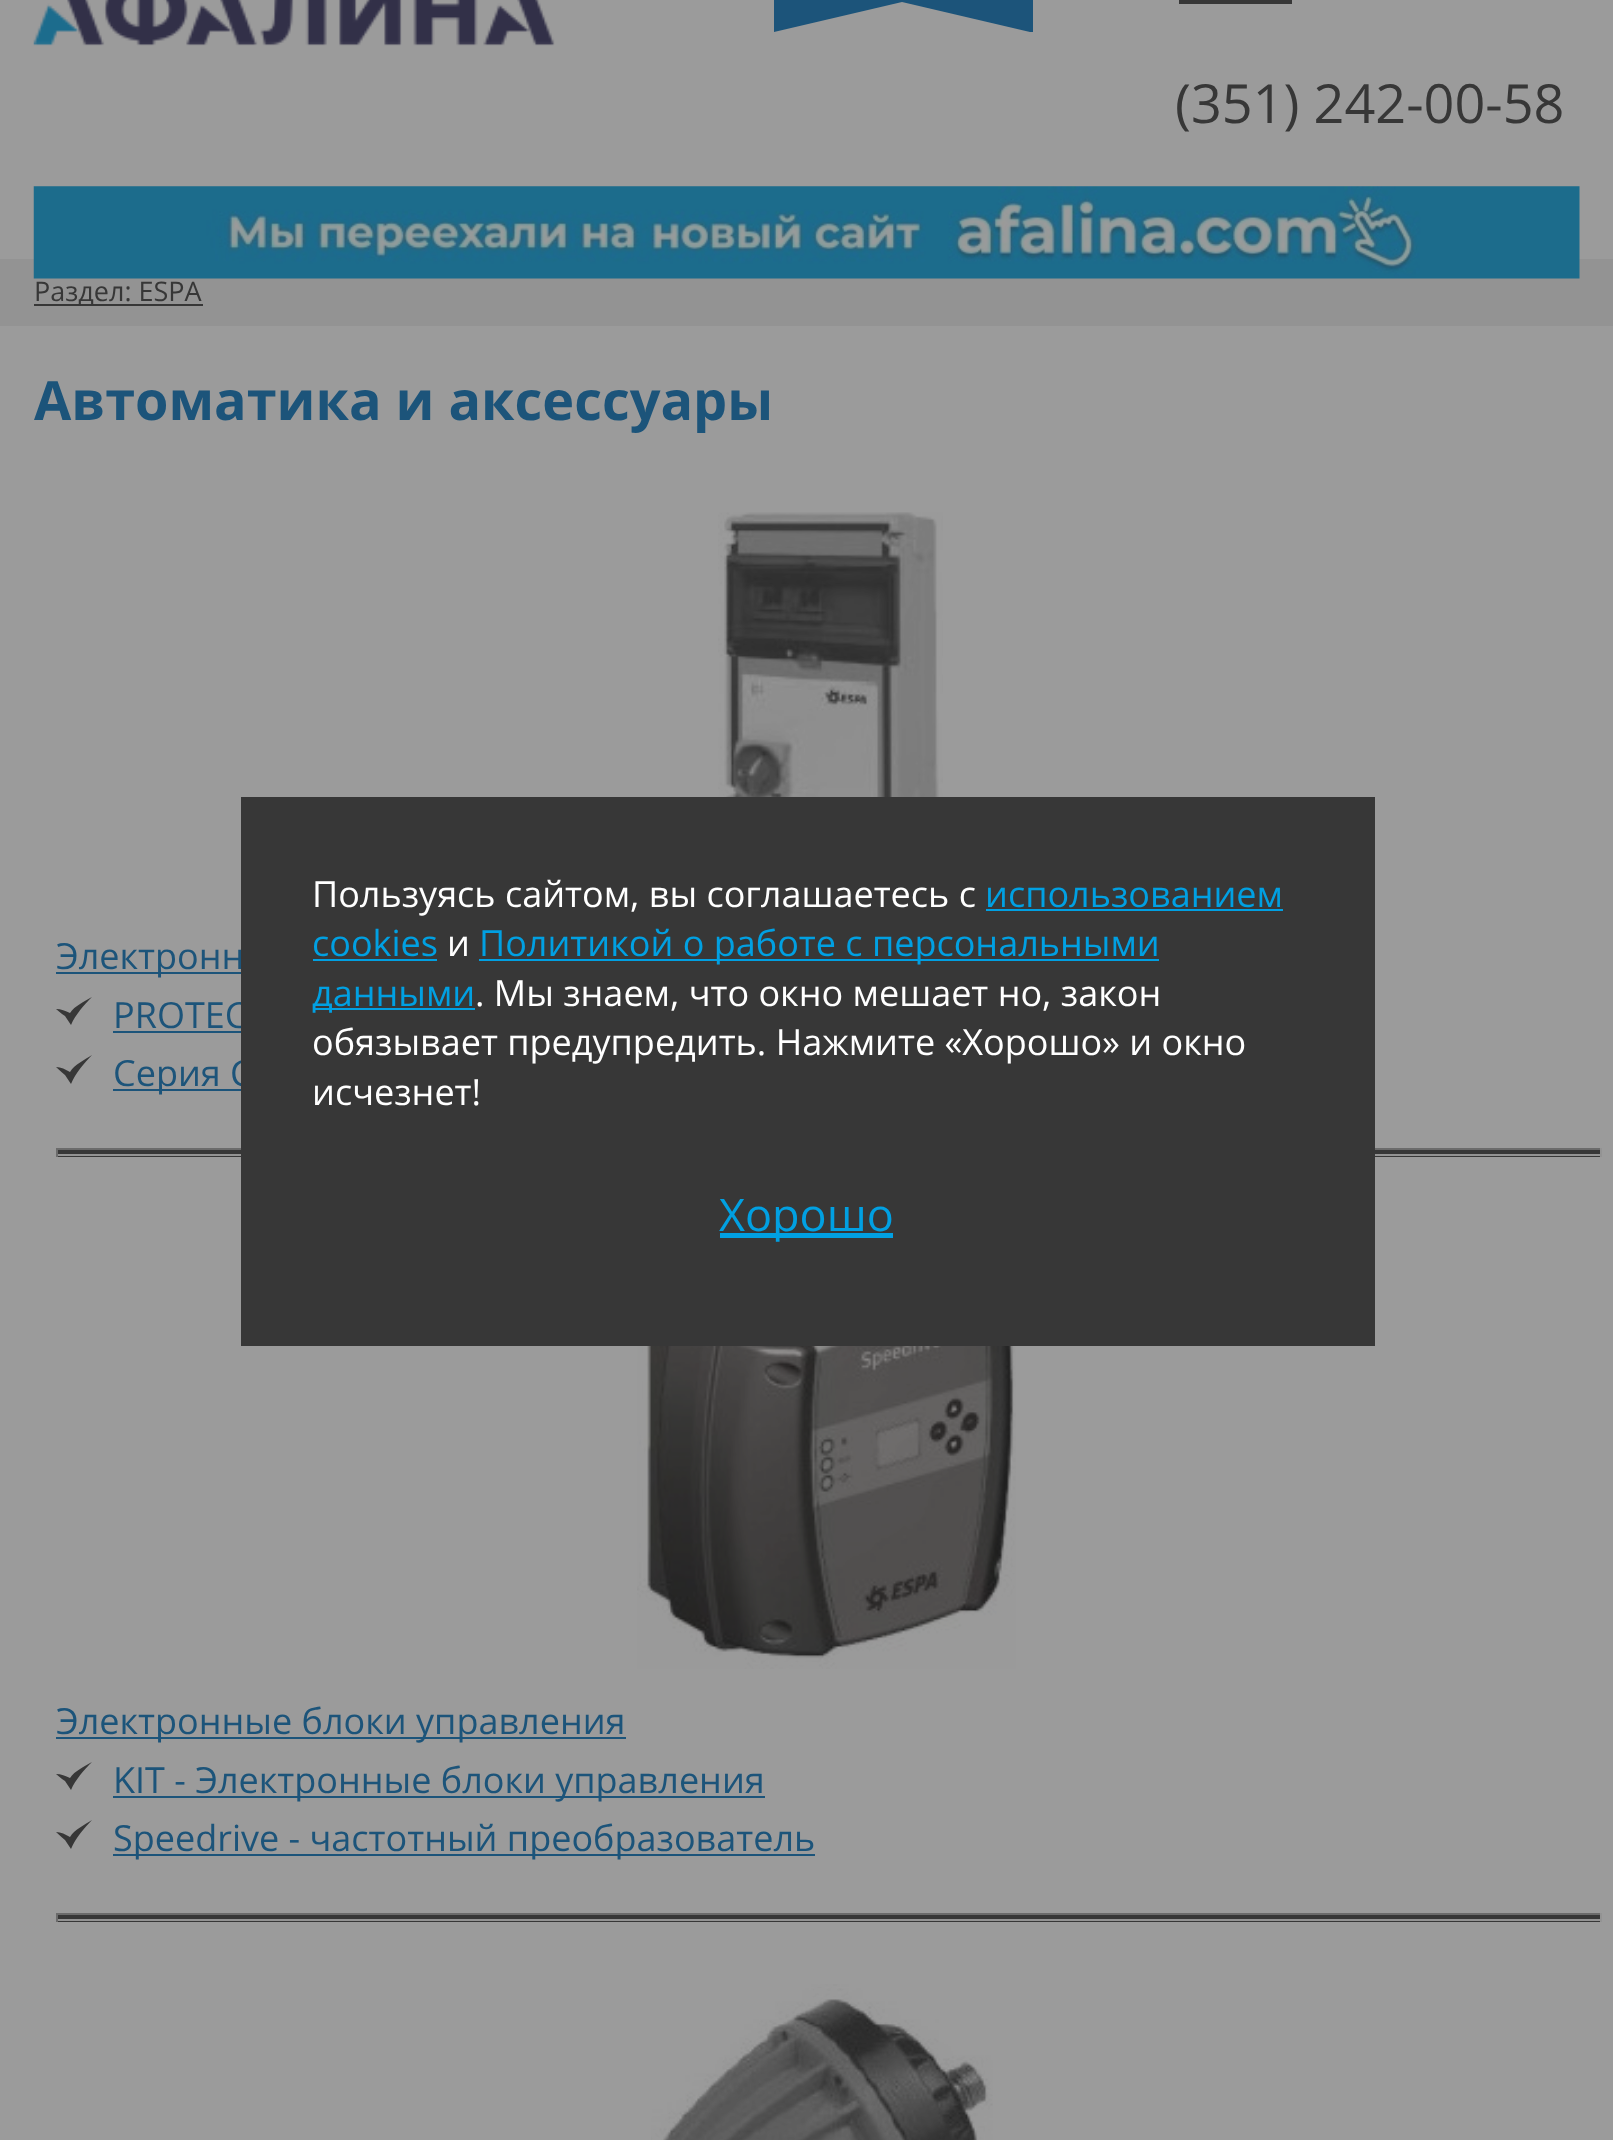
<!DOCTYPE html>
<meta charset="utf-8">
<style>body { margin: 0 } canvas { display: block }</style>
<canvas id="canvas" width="1613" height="2140"></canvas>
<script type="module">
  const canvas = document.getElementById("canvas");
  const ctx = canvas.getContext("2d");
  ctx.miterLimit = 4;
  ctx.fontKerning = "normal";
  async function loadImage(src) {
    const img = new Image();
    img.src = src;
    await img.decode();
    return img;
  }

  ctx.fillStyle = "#9b9b9b";
  ctx.fillRect(0, 0, 1613, 2140);
  ctx.drawImage(await loadImage("img1.png"), 33, 0, 522, 46);
  ctx.fillStyle = "#1c547a";
  ctx.fillRect(774, 0, 259, 32);
  ctx.fillStyle = "#9b9b9b";
  ctx.beginPath();
  ctx.moveTo(1030, 32);
  ctx.lineTo(774, 32);
  ctx.lineTo(902, 2);
  ctx.closePath();
  ctx.fill();
  ctx.fillStyle = "#373737";
  ctx.beginPath();
  ctx.moveTo(1179, -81);
  ctx.lineTo(1179, 4);
  ctx.lineTo(1292, 4);
  ctx.lineTo(1292, -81);
  ctx.closePath();
  ctx.moveTo(1212, -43);
  ctx.lineTo(1188, -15);
  ctx.lineTo(1188, -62);
  ctx.closePath();
  ctx.moveTo(1188, -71);
  ctx.lineTo(1283, -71);
  ctx.lineTo(1235, -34);
  ctx.closePath();
  ctx.moveTo(1217, -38);
  ctx.lineTo(1235, -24);
  ctx.lineTo(1254, -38);
  ctx.lineTo(1278, -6);
  ctx.lineTo(1193, -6);
  ctx.closePath();
  ctx.moveTo(1259, -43);
  ctx.lineTo(1283, -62);
  ctx.lineTo(1283, -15);
  ctx.closePath();
  ctx.fill();
  ctx.font = "54px Open Sans";
  ctx.fillText("(351) 242-00-58", 1175, 123);
  ctx.fillStyle = "#939393";
  ctx.fillRect(0, 259, 1613, 67);
  ctx.drawImage(await loadImage("img2.png"), 33, 186, 1547, 93);
  ctx.fillStyle = "#373737";
  ctx.fillRect(34, 304, 169, 2);
  ctx.font = "27px Open Sans";
  ctx.fillText("Раздел: ESPA", 34, 301);
  ctx.font = "bold 54px Open Sans";
  ctx.fillStyle = "#1c547a";
  ctx.fillText("Автоматика и аксессуары", 34, 420);
  ctx.drawImage(await loadImage("img3.png"), 718, 512, 225, 285);
  ctx.fillRect(56, 972, 185, 2);
  ctx.font = "36px Open Sans";
  ctx.fillText("Электронн", 56, 969);
  ctx.fillStyle = "#373737";
  ctx.beginPath();
  ctx.moveTo(56, 1009);
  ctx.bezierCurveTo(61, 1009, 65.5, 1011, 70, 1013);
  ctx.bezierCurveTo(74.5, 1006, 85, 1001, 92, 997);
  ctx.bezierCurveTo(84, 1005, 75.5, 1014.5, 71, 1025);
  ctx.lineTo(65, 1016);
  ctx.lineTo(62, 1014);
  ctx.closePath();
  ctx.fill();
  ctx.fillStyle = "#1c547a";
  ctx.fillText("PROTEC", 113, 1028);
  ctx.fillRect(113, 1031, 128, 2);
  ctx.fillStyle = "#373737";
  ctx.beginPath();
  ctx.moveTo(56, 1067);
  ctx.bezierCurveTo(61, 1067, 65.5, 1069.5, 70, 1072);
  ctx.bezierCurveTo(74.5, 1064.5, 85, 1059.5, 92, 1055);
  ctx.bezierCurveTo(84, 1063.5, 75.5, 1073, 71, 1084);
  ctx.lineTo(65, 1075);
  ctx.lineTo(62, 1072.5);
  ctx.closePath();
  ctx.fill();
  ctx.fillStyle = "#1c547a";
  ctx.fillRect(113, 1089, 128, 2);
  ctx.fillText("Серия C", 113, 1086);
  ctx.fillStyle = "#373737";
  ctx.fillRect(58, 1150, 1542, 7);
  ctx.fillStyle = "#6b6b6b";
  ctx.fillRect(56, 1148, 1546, 2);
  ctx.fillStyle = "#939393";
  ctx.fillRect(1600, 1148, 2, 9);
  ctx.fillRect(56, 1154, 1546, 2);
  ctx.fillStyle = "#6b6b6b";
  ctx.fillRect(56, 1148, 2, 9);
  ctx.drawImage(await loadImage("img4.png"), 637, 1346, 379, 323);
  ctx.fillStyle = "#1c547a";
  ctx.fillRect(56, 1737, 570, 2);
  ctx.fillText("Электронные блоки управления", 56, 1734);
  ctx.fillStyle = "#373737";
  ctx.beginPath();
  ctx.moveTo(56, 1774);
  ctx.bezierCurveTo(61, 1774, 65.5, 1776, 70, 1778);
  ctx.bezierCurveTo(74.5, 1771, 85, 1766, 92, 1762);
  ctx.bezierCurveTo(84, 1770, 75.5, 1779.5, 71, 1790);
  ctx.lineTo(65, 1781);
  ctx.lineTo(62, 1779);
  ctx.closePath();
  ctx.fill();
  ctx.fillStyle = "#1c547a";
  ctx.fillRect(113, 1796, 652, 2);
  ctx.fillText("KIT - Электронные блоки управления", 113, 1793);
  ctx.fillStyle = "#373737";
  ctx.beginPath();
  ctx.moveTo(56, 1832);
  ctx.bezierCurveTo(61, 1832, 65.5, 1834.5, 70, 1837);
  ctx.bezierCurveTo(74.5, 1829.5, 85, 1824.5, 92, 1820);
  ctx.bezierCurveTo(84, 1828.5, 75.5, 1838, 71, 1849);
  ctx.lineTo(65, 1840);
  ctx.lineTo(62, 1837.5);
  ctx.closePath();
  ctx.fill();
  ctx.fillStyle = "#1c547a";
  ctx.fillRect(113, 1854, 702, 2);
  ctx.fillText("Speedrive - частотный преобразователь", 113, 1851);
  ctx.fillStyle = "#373737";
  ctx.fillRect(58, 1915, 1542, 7);
  ctx.fillStyle = "#6b6b6b";
  ctx.fillRect(56, 1913, 1546, 2);
  ctx.fillStyle = "#939393";
  ctx.fillRect(1600, 1913, 2, 9);
  ctx.fillRect(56, 1919, 1546, 2);
  ctx.fillStyle = "#6b6b6b";
  ctx.fillRect(56, 1913, 2, 9);
  ctx.drawImage(await loadImage("img5.png"), 651, 1984, 342, 156);
  ctx.fillStyle = "#373737";
  ctx.fillRect(241, 797, 1134, 549);
  ctx.fillStyle = "#ffffff";
  ctx.fillText("Пользуясь сайтом, вы соглашаетесь с", 312, 907);
  ctx.fillStyle = "#01a0e2";
  ctx.fillText("использованием", 985, 907);
  ctx.fillRect(986, 909, 297, 2);
  ctx.fillText("cookies", 312, 956);
  ctx.fillRect(313, 959, 124, 2);
  ctx.fillStyle = "#ffffff";
  ctx.fillText("и", 447, 956);
  ctx.fillStyle = "#01a0e2";
  ctx.fillRect(479, 959, 680, 2);
  ctx.fillText("Политикой о работе с персональными", 479, 956);
  ctx.fillRect(313, 1008, 162, 2);
  ctx.fillText("данными", 312, 1006);
  ctx.fillStyle = "#ffffff";
  ctx.fillText(". Мы знаем, что окно мешает но, закон", 475, 1006);
  ctx.fillText("обязывает предупредить. Нажмите «Хорошо» и окно", 312, 1055);
  ctx.fillText("исчезнет!", 312, 1105);
  ctx.fillStyle = "#01a0e2";
  ctx.fillRect(720, 1233, 173, 5);
  ctx.font = "45px Open Sans";
  ctx.fillText("Хорошо", 719, 1231);
</script>
